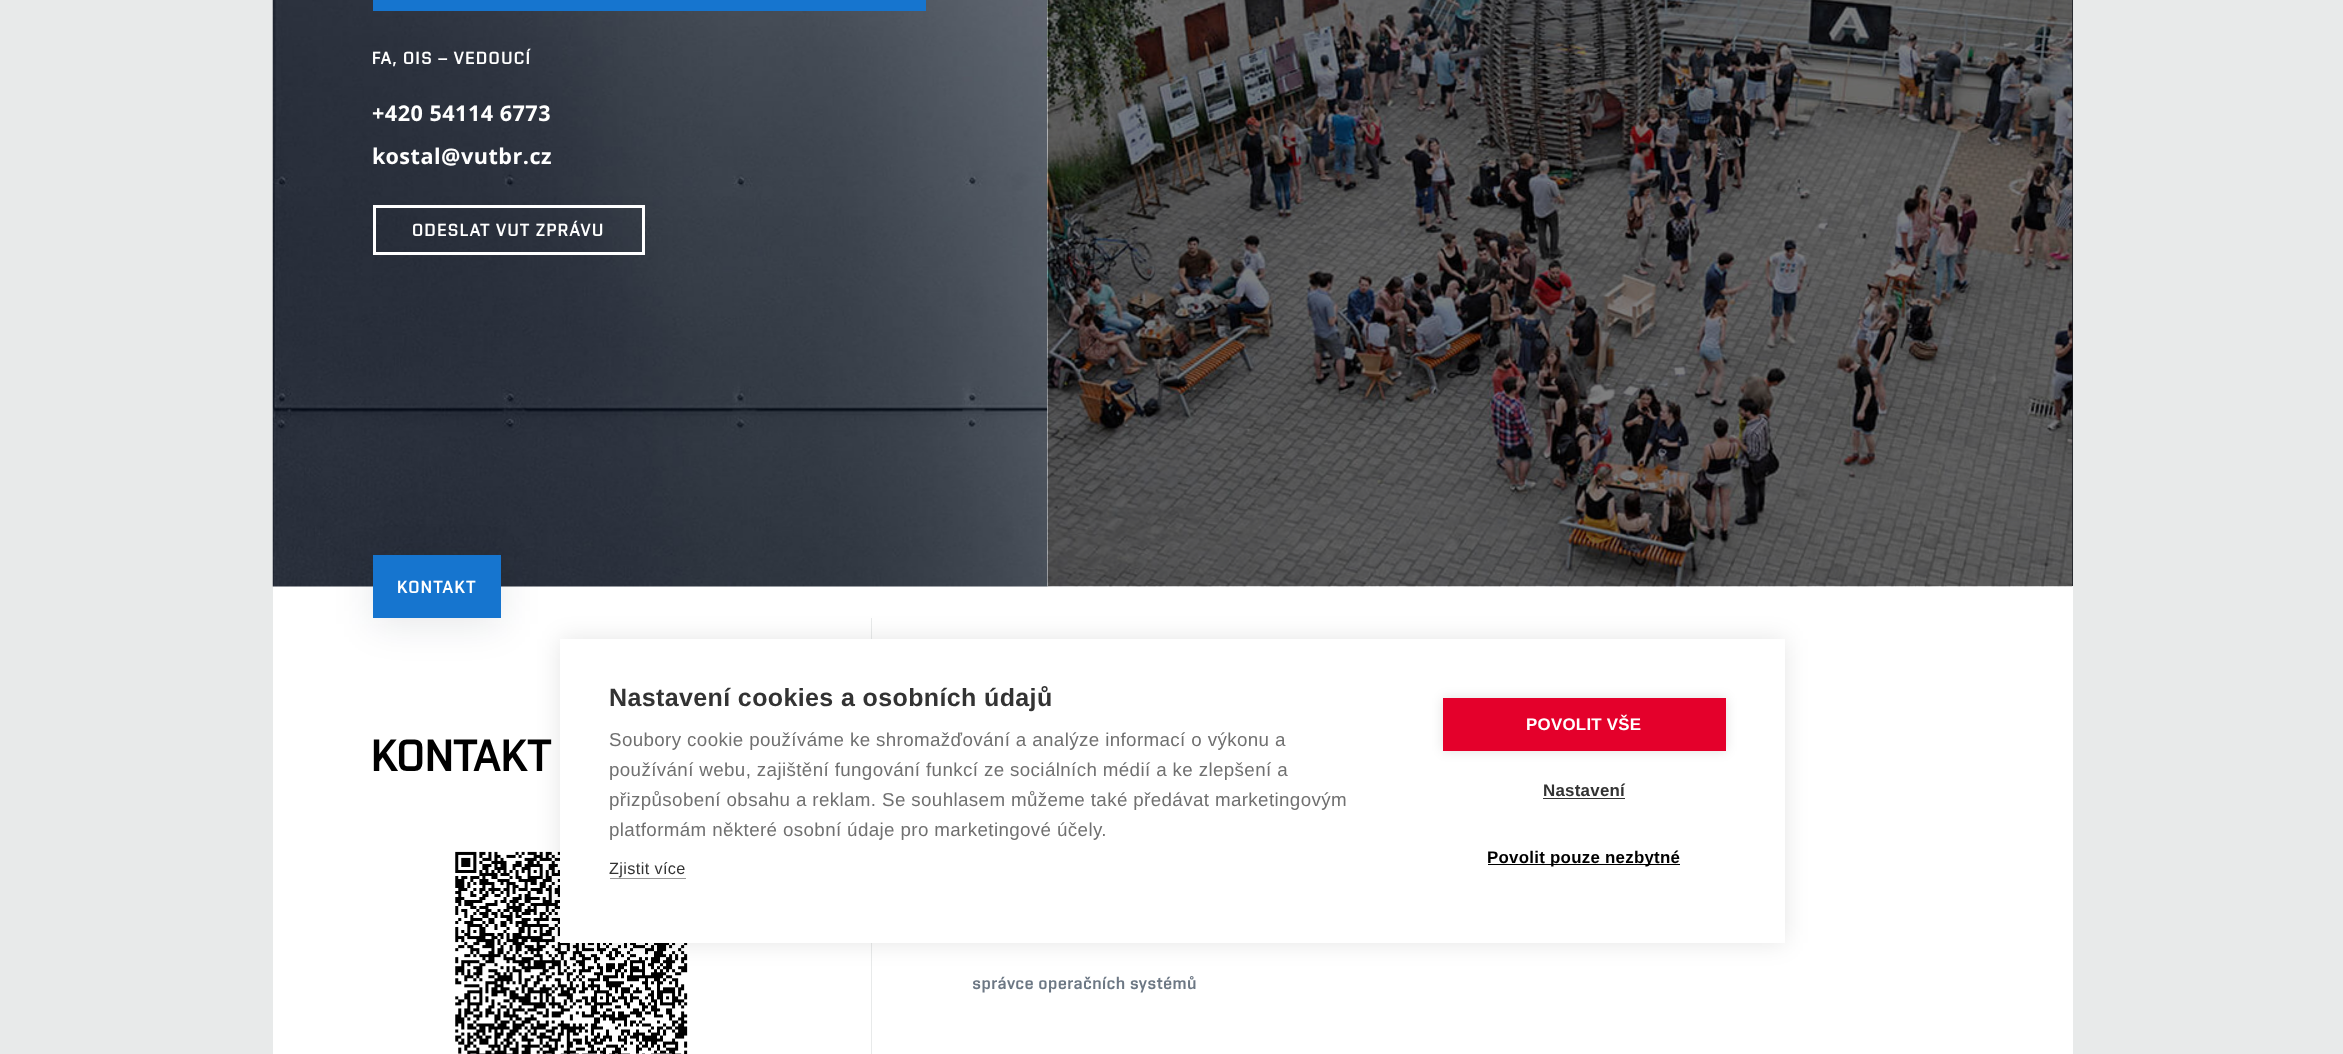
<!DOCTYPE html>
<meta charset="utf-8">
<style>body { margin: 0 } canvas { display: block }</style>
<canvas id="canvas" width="2343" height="1054"></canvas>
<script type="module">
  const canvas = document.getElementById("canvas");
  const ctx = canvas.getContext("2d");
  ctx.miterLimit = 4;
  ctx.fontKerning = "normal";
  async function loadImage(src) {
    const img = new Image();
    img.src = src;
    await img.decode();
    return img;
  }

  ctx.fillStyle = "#e8eaea";
  ctx.fillRect(0, 0, 2343, 1054);
  ctx.fillStyle = "#ffffff";
  ctx.fillRect(273, 0, 1800, 1054);
  ctx.fillStyle = "#16191f";
  ctx.fillRect(2072, 0, 1, 586);
  ctx.drawImage(await loadImage("img1.png"), 272, 0, 776, 587);
  ctx.fillStyle = "#1675cf";
  ctx.fillRect(373, 0, 553, 11);
  ctx.letterSpacing = "1.4px";
  ctx.font = "17.5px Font";
  ctx.fillStyle = "#ffffff";
  ctx.fillText("FA, OIS – VEDOUCÍ", 372, 64);
  ctx.letterSpacing = "0.5px";
  ctx.font = "bold 22.5px Open Sans";
  ctx.fillText("+420 54114 6773", 372, 121);
  ctx.fillText("kostal@vutbr.cz", 372, 164);
  ctx.beginPath();
  ctx.rect(374.5, 206.5, 269, 47);
  ctx.strokeStyle = "#ffffff";
  ctx.lineWidth = 3;
  ctx.stroke();
  ctx.letterSpacing = "1.4px";
  ctx.font = "17.5px Font";
  ctx.fillText("ODESLAT VUT ZPRÁVU", 412, 236);
  ctx.drawImage(await loadImage("img2.png"), 1047, 0, 1026, 587);
  ctx.fillStyle = "rgba(12, 22, 39, 0.1)";
  ctx.filter = "blur(19px)";
  ctx.beginPath();
  ctx.rect(373, 561, 128, 63);
  ctx.fill();
  ctx.filter = "none";
  ctx.fillStyle = "#1675cf";
  ctx.fillRect(373, 555, 128, 63);
  ctx.fillStyle = "#ffffff";
  ctx.fillText("KONTAKT", 397, 593);
  ctx.letterSpacing = "0px";
  ctx.font = "45px Font";
  ctx.fillStyle = "#000000";
  ctx.fillText("KONTAKT", 371, 771);
  ctx.drawImage(await loadImage("img3.png"), 455, 851, 233, 203);
  ctx.fillStyle = "#e8eaea";
  ctx.fillRect(871, 618, 1, 436);
  ctx.letterSpacing = "0.35px";
  ctx.font = "17.5px Font";
  ctx.fillStyle = "#6c7784";
  ctx.fillText("správce operačních systémů", 972, 989);
  ctx.fillStyle = "rgba(0, 0, 0, 0.1)";
  ctx.filter = "blur(12.5px)";
  ctx.beginPath();
  ctx.rect(560, 639, 1225, 304);
  ctx.fill();
  ctx.filter = "none";
  ctx.fillStyle = "#ffffff";
  ctx.fillRect(560, 639, 1225, 304);
  ctx.letterSpacing = "0.38px";
  ctx.font = "bold 25px Liberation Sans";
  ctx.fillStyle = "#333333";
  ctx.fillText("Nastavení cookies a osobních údajů", 609, 706);
  ctx.font = "18.75px Liberation Sans";
  ctx.fillStyle = "#707070";
  ctx.fillText("Soubory cookie používáme ke shromažďování a analýze informací o výkonu a", 609, 746);
  ctx.fillText("používání webu, zajištění fungování funkcí ze sociálních médií a ke zlepšení a", 609, 776);
  ctx.fillText("přizpůsobení obsahu a reklam. Se souhlasem můžeme také předávat marketingovým", 609, 806);
  ctx.fillText("platformám některé osobní údaje pro marketingové účely.", 609, 836);
  ctx.font = "16.25px Liberation Sans";
  ctx.fillStyle = "#333333";
  ctx.fillText("Zjistit více", 609, 874);
  ctx.fillStyle = "#999999";
  ctx.fillRect(610, 878, 76, 1);
  ctx.fillStyle = "rgba(0, 0, 0, 0.12)";
  ctx.filter = "blur(6px)";
  ctx.beginPath();
  ctx.rect(1443, 698, 283, 53);
  ctx.fill();
  ctx.filter = "none";
  ctx.fillStyle = "#e4002b";
  ctx.fillRect(1443, 698, 283, 53);
  ctx.letterSpacing = "0.25px";
  ctx.font = "bold 16.9px Liberation Sans";
  ctx.fillStyle = "#ffffff";
  ctx.fillText("POVOLIT VŠE", 1526, 730);
  ctx.fillStyle = "#333333";
  ctx.fillText("Nastavení", 1543, 796);
  ctx.fillRect(1543, 798, 82, 1);
  ctx.fillStyle = "#000000";
  ctx.fillRect(1488, 864, 192, 1);
  ctx.fillText("Povolit pouze nezbytné", 1487, 863);
</script>
